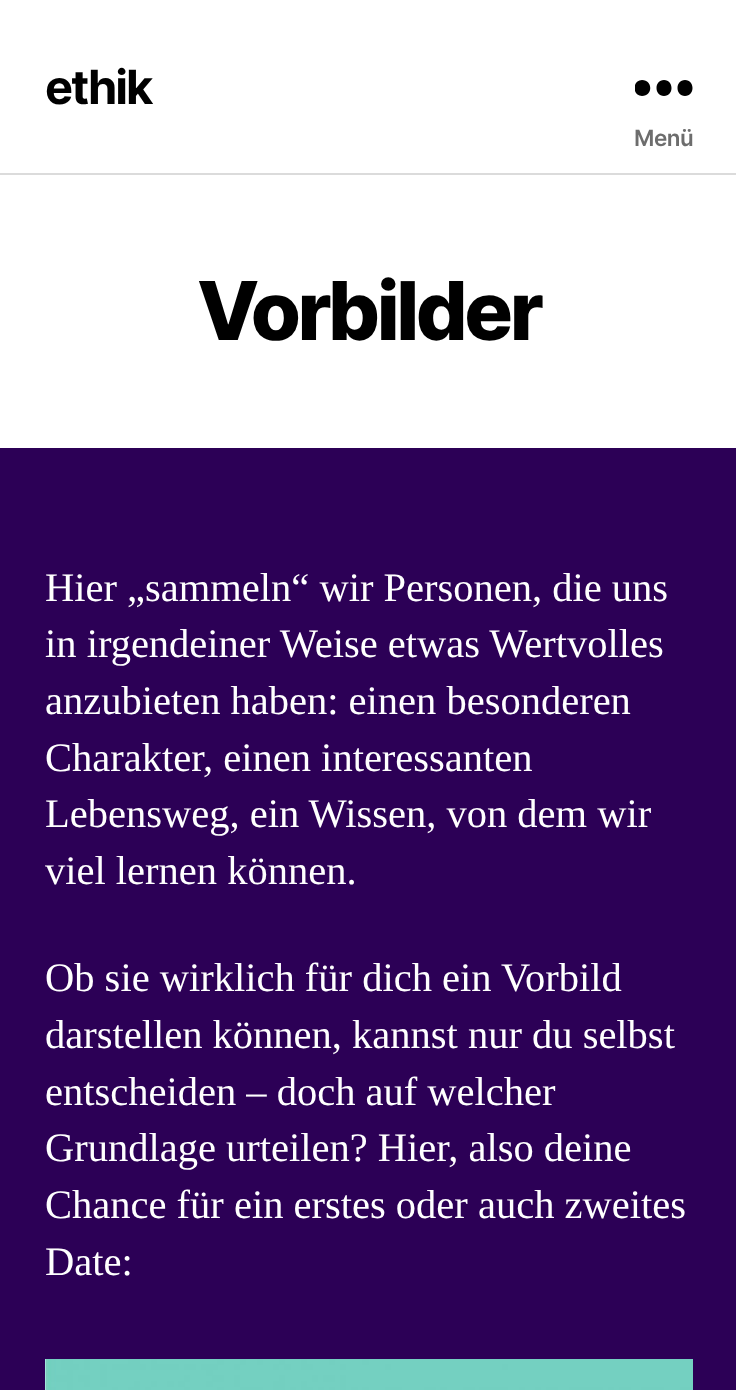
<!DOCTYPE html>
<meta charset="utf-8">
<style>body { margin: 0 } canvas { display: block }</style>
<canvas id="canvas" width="736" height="1390"></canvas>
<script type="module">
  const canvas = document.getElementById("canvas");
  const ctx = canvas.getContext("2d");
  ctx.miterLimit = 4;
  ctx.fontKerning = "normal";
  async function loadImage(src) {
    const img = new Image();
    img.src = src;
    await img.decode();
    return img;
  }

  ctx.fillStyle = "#2c0056";
  ctx.fillRect(0, 0, 736, 1390);
  ctx.fillStyle = "#ffffff";
  ctx.fillRect(0, 0, 736, 448);
  ctx.fillStyle = "#dbdbdb";
  ctx.fillRect(0, 173, 736, 2);
  ctx.letterSpacing = "-2px";
  ctx.font = "bold 47px Inter";
  ctx.fillStyle = "#000000";
  ctx.fillText("ethik", 45, 104);
  ctx.save();
  ctx.beginPath();
  ctx.rect(635, 79, 58, 18);
  ctx.clip();
  ctx.beginPath();
  ctx.moveTo(642, 96);
  ctx.bezierCurveTo(632, 96, 632, 80, 642, 80);
  ctx.bezierCurveTo(653, 80, 653, 96, 642, 96);
  ctx.closePath();
  ctx.moveTo(664, 96);
  ctx.bezierCurveTo(654, 96, 654, 80, 664, 80);
  ctx.bezierCurveTo(674, 80, 674, 96, 664, 96);
  ctx.closePath();
  ctx.moveTo(685, 96);
  ctx.bezierCurveTo(675, 96, 675, 80, 685, 80);
  ctx.bezierCurveTo(695, 80, 695, 96, 685, 96);
  ctx.closePath();
  ctx.fill("evenodd");
  ctx.restore();
  ctx.letterSpacing = "-0.5px";
  ctx.font = "600 22.5px Inter";
  ctx.fillStyle = "#6d6d6d";
  ctx.fillText("Menü", 634, 146);
  ctx.letterSpacing = "-3.4px";
  ctx.font = "800 81px Inter";
  ctx.fillStyle = "#000000";
  ctx.fillText("Vorbilder", 197, 340);
  ctx.letterSpacing = "0px";
  ctx.font = "40.5px Liberation Serif";
  ctx.fillStyle = "#ffffff";
  ctx.fillText("Hier „sammeln“ wir Personen, die uns", 45, 601);
  ctx.fillText("in irgendeiner Weise etwas Wertvolles", 45, 657);
  ctx.fillText("anzubieten haben: einen besonderen", 45, 714);
  ctx.fillText("Charakter, einen interessanten", 45, 771);
  ctx.fillText("Lebensweg, ein Wissen, von dem wir", 45, 827);
  ctx.fillText("viel lernen können.", 45, 884);
  ctx.fillText("Ob sie wirklich für dich ein Vorbild", 45, 991);
  ctx.fillText("darstellen können, kannst nur du selbst", 45, 1048);
  ctx.fillText("entscheiden – doch auf welcher", 45, 1105);
  ctx.fillText("Grundlage urteilen? Hier, also deine", 45, 1161);
  ctx.fillText("Chance für ein erstes oder auch zweites", 45, 1218);
  ctx.fillText("Date:", 45, 1275);
  ctx.drawImage(await loadImage("img1.png"), 45, 1359, 648, 31);
</script>
